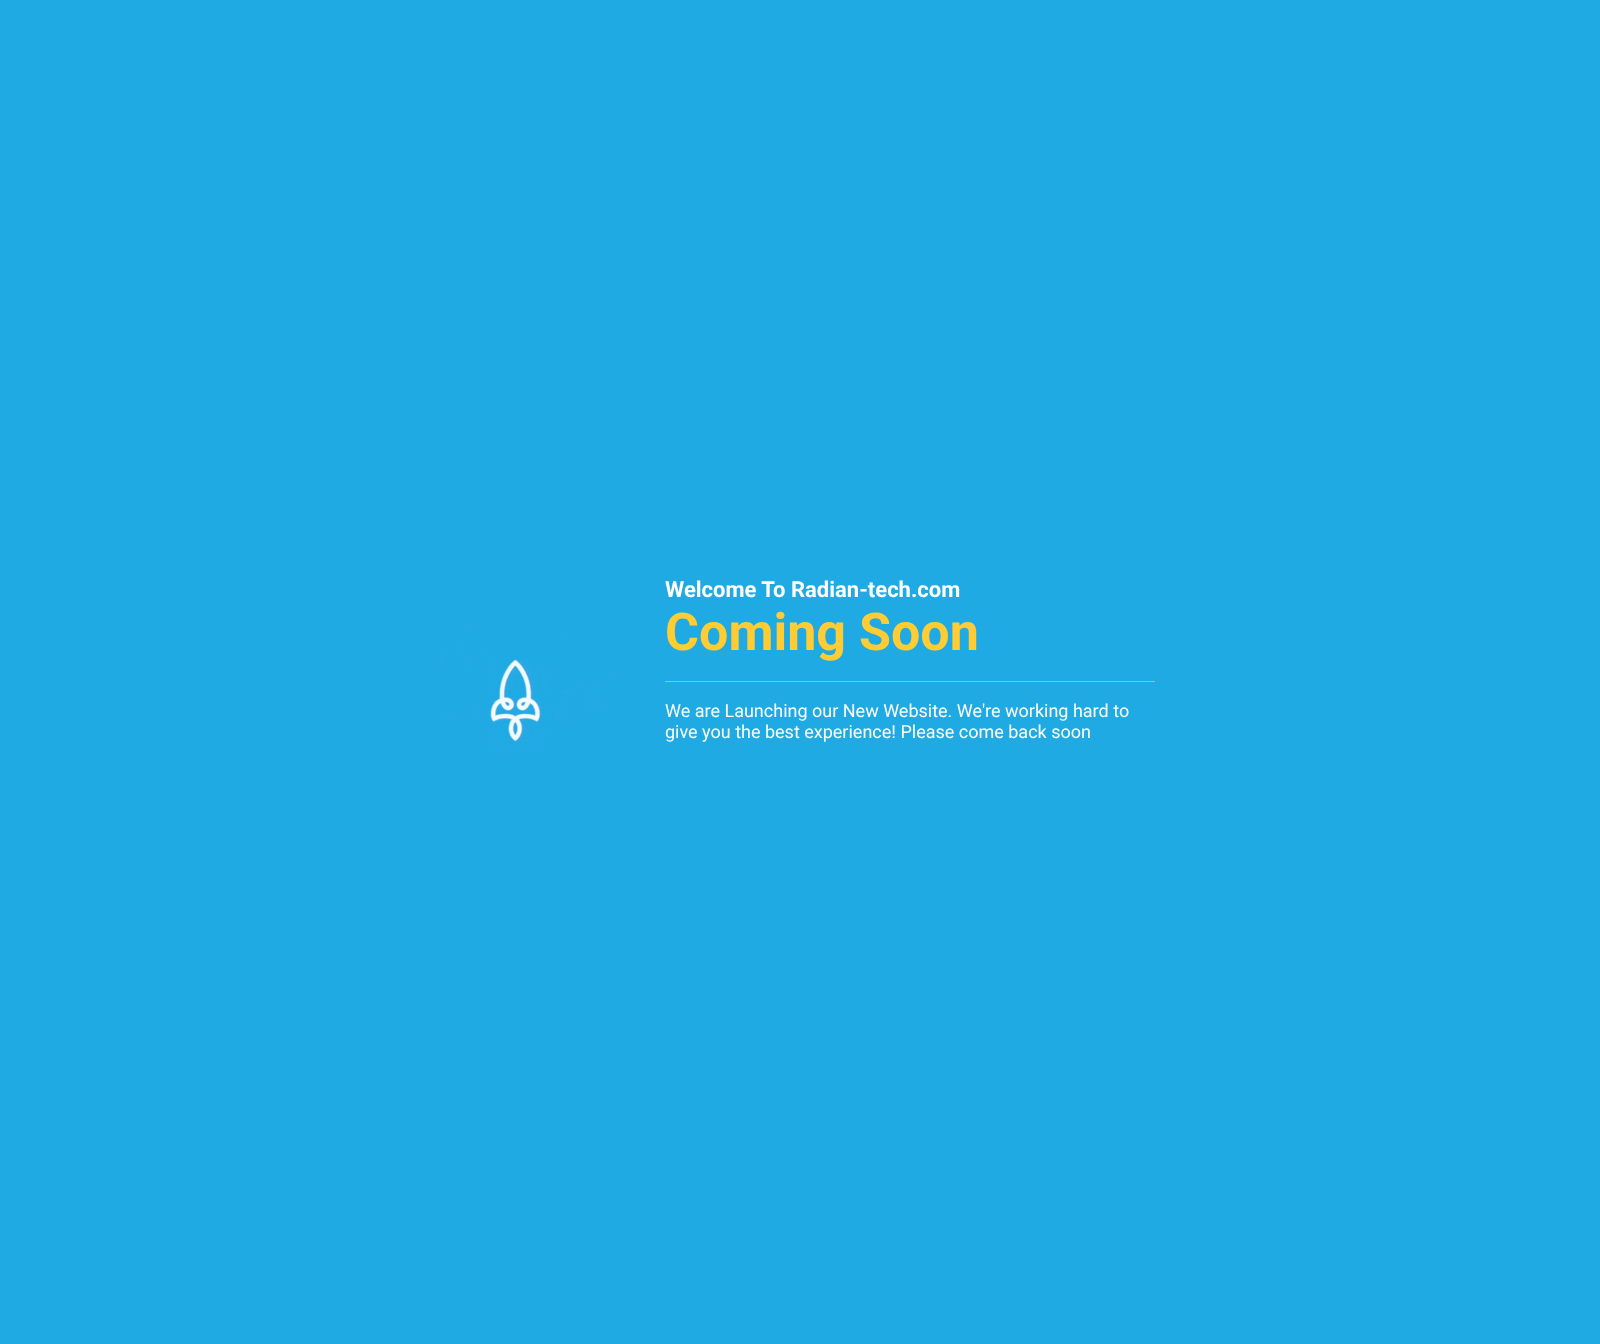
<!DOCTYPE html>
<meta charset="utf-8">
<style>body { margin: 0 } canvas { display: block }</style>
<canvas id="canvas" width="1600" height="1344"></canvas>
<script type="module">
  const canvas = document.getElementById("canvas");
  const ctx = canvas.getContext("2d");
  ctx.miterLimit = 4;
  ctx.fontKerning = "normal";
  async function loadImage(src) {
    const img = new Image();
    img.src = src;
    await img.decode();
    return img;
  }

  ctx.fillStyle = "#20aae3";
  ctx.fillRect(0, 0, 1600, 1344);
  ctx.drawImage(await loadImage("img1.png"), 440, 615, 175, 155);
  ctx.font = "bold 22px Roboto";
  ctx.fillStyle = "#ffffff";
  ctx.fillText("Welcome To Radian-tech.com", 665, 597);
  ctx.font = "bold 52px Roboto";
  ctx.fillStyle = "#ffcc34";
  ctx.fillText("Coming Soon", 665, 650);
  ctx.fillStyle = "#b3b3b3";
  ctx.fillRect(665, 681, 490, 1);
  ctx.font = "18px Roboto";
  ctx.fillStyle = "#ffffff";
  ctx.fillText("We are Launching our New Website. We're working hard to", 665, 717);
  ctx.fillText("give you the best experience! Please come back soon", 665, 738);
</script>
